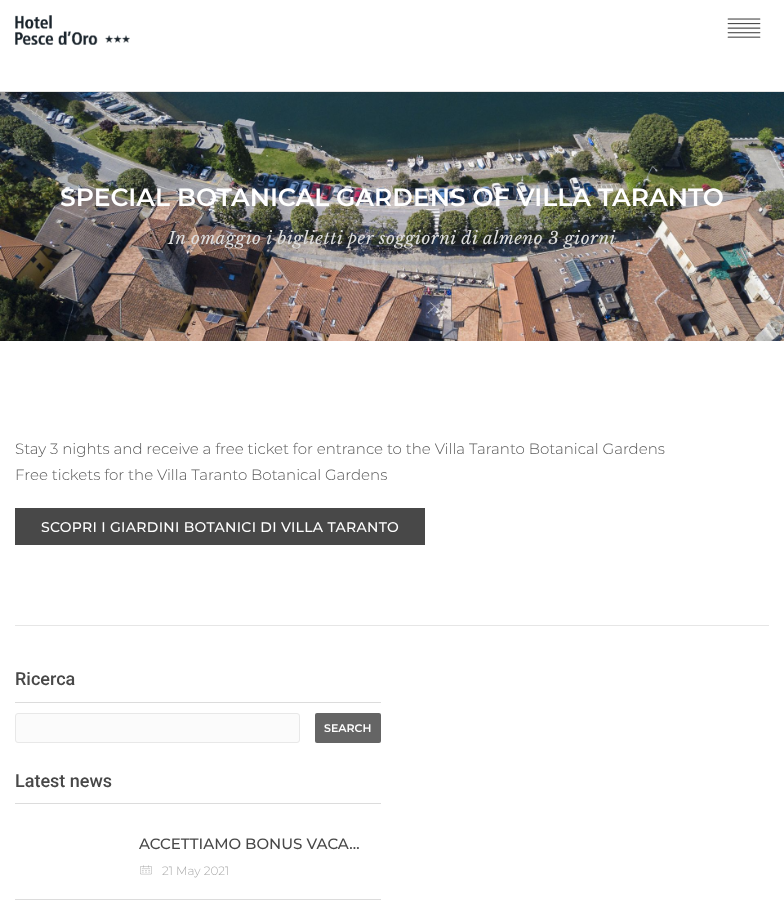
<!DOCTYPE html>
<meta charset="utf-8">
<style>body { margin: 0 } canvas { display: block }</style>
<canvas id="canvas" width="784" height="911"></canvas>
<script type="module">
  const canvas = document.getElementById("canvas");
  const ctx = canvas.getContext("2d");
  ctx.miterLimit = 4;
  ctx.fontKerning = "normal";
  async function loadImage(src) {
    const img = new Image();
    img.src = src;
    await img.decode();
    return img;
  }

  ctx.fillStyle = "#ffffff";
  ctx.fillRect(0, 0, 784, 911);
  ctx.fillStyle = "#e4e4e4";
  ctx.fillRect(0, 91, 784, 1);
  ctx.drawImage(await loadImage("img1.png"), 15, 15, 115, 30);
  ctx.drawImage(await loadImage("img2.png"), 727, 18, 34, 20);
  ctx.drawImage(await loadImage("img3.png"), 0, 92, 784, 249);
  ctx.font = "600 25px Montserrat";
  ctx.fillStyle = "#ffffff";
  ctx.fillText("SPECIAL BOTANICAL GARDENS OF VILLA TARANTO", 60, 206);
  ctx.letterSpacing = "0.5px";
  ctx.font = "italic 17px Libre Baskerville";
  ctx.fillStyle = "#dedede";
  ctx.fillText("In omaggio i biglietti per soggiorni di almeno 3 giorni", 168, 244);
  ctx.letterSpacing = "0px";
  ctx.font = "300 15px Montserrat";
  ctx.fillStyle = "#585858";
  ctx.fillText("Stay 3 nights and receive a free ticket for entrance to the Villa Taranto Botanical Gardens", 15, 454);
  ctx.fillText("Free tickets for the Villa Taranto Botanical Gardens", 15, 480);
  ctx.fillStyle = "#484848";
  ctx.fillRect(15, 508, 410, 37);
  ctx.letterSpacing = "0.3px";
  ctx.font = "500 14px Montserrat";
  ctx.fillStyle = "#ffffff";
  ctx.fillText("SCOPRI I GIARDINI BOTANICI DI VILLA TARANTO", 41, 532);
  ctx.fillStyle = "#e6e6e6";
  ctx.fillRect(15, 625, 754, 1);
  ctx.fillStyle = "#dcdcdc";
  ctx.fillRect(15, 702, 366, 1);
  ctx.letterSpacing = "0px";
  ctx.font = "500 18px Roboto";
  ctx.fillStyle = "#484848";
  ctx.fillText("Ricerca", 15, 685);
  ctx.fillStyle = "#fbfbfb";
  ctx.beginPath();
  ctx.roundRect(15.5, 713.5, 284, 29, 2.5);
  ctx.fill();
  ctx.strokeStyle = "#e8e8e8";
  ctx.stroke();
  ctx.fillStyle = "#656565";
  ctx.beginPath();
  ctx.roundRect(315, 713, 66, 30, 2);
  ctx.fill();
  ctx.font = "600 11px Montserrat";
  ctx.fillStyle = "#ffffff";
  ctx.fillText("SEARCH", 324, 732);
  ctx.fillStyle = "#dcdcdc";
  ctx.fillRect(15, 803, 366, 1);
  ctx.font = "500 18px Roboto";
  ctx.fillStyle = "#484848";
  ctx.fillText("Latest news", 15, 787);
  ctx.fillStyle = "#dcdcdc";
  ctx.fillRect(15, 899, 366, 1);
  ctx.font = "500 15px Montserrat";
  ctx.fillStyle = "#484848";
  ctx.fillText("ACCETTIAMO BONUS VACA…", 139, 849);
  ctx.drawImage(await loadImage("img4.png"), 140, 865, 12, 10);
  ctx.font = "300 12px Montserrat";
  ctx.fillStyle = "#ababab";
  ctx.fillText("21 May 2021", 162, 875);
</script>
